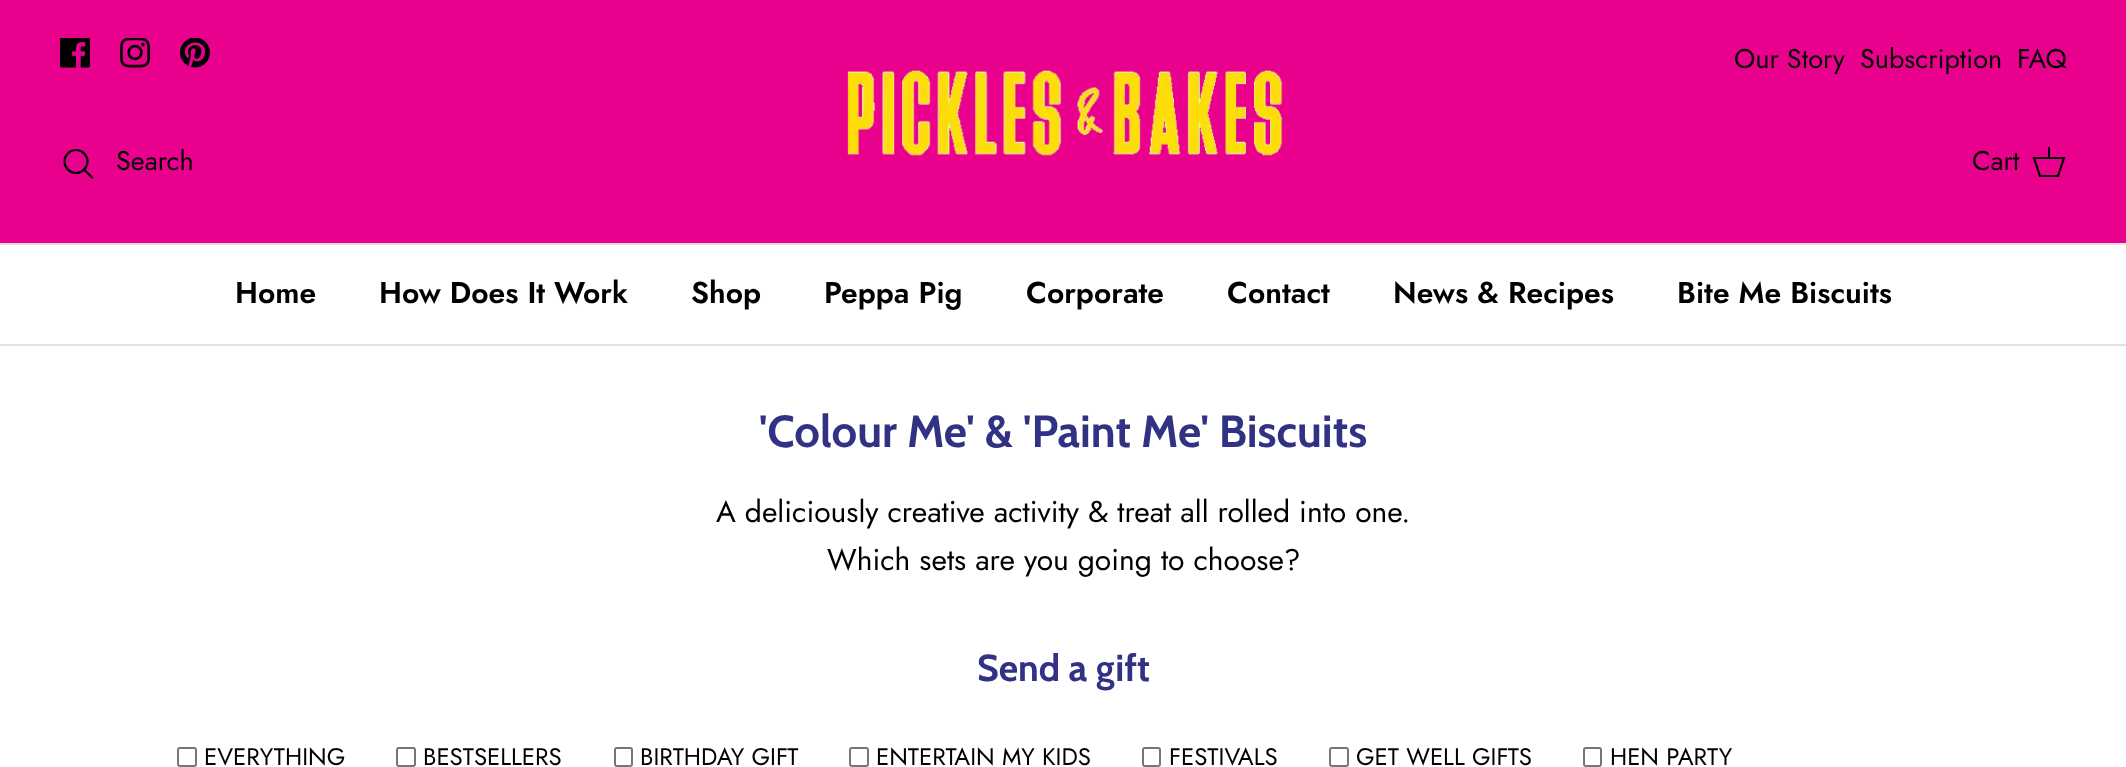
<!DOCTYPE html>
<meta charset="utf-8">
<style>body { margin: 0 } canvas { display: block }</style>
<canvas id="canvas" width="2126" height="767"></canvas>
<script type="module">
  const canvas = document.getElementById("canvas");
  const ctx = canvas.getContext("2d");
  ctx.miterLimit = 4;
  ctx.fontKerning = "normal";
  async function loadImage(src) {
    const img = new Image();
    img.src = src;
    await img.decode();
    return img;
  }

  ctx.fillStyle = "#ffffff";
  ctx.fillRect(0, 0, 2126, 767);
  ctx.fillStyle = "#e9008d";
  ctx.fillRect(0, 0, 2126, 243);
  ctx.drawImage(await loadImage("img1.png"), 60, 38, 30, 30);
  ctx.drawImage(await loadImage("img2.png"), 120, 38, 30, 30);
  ctx.drawImage(await loadImage("img3.png"), 180, 38, 30, 30);
  ctx.font = "27px Jost";
  ctx.fillStyle = "#000000";
  ctx.fillText("Our Story", 1734, 68);
  ctx.fillText("Subscription", 1860, 68);
  ctx.fillText("FAQ", 2017, 68);
  ctx.fillStyle = "#e2e2e2";
  ctx.fillRect(0, 243, 2126, 2);
  ctx.drawImage(await loadImage("img4.png"), 847, 70, 436, 86);
  ctx.beginPath();
  ctx.arc(76, 161.5, 11.5, 0, Math.PI * 2);
  ctx.strokeStyle = "#000000";
  ctx.lineWidth = 2.2;
  ctx.stroke();
  ctx.fillStyle = "#000000";
  ctx.fillText("Search", 116, 170);
  ctx.beginPath();
  ctx.moveTo(85.5, 171);
  ctx.lineTo(92, 177.5);
  ctx.lineCap = "square";
  ctx.stroke();
  ctx.fillText("Cart", 1972, 170);
  ctx.beginPath();
  ctx.moveTo(2034, 158);
  ctx.lineTo(2064, 158);
  ctx.lineTo(2058, 176);
  ctx.lineTo(2040, 176);
  ctx.closePath();
  ctx.lineCap = "butt";
  ctx.stroke();
  ctx.fillRect(2048, 147, 2, 12);
  ctx.fillStyle = "#e2e2e2";
  ctx.fillRect(0, 344, 2126, 2);
  ctx.font = "600 30px Jost";
  ctx.fillStyle = "#000000";
  ctx.fillText("Home", 235, 303);
  ctx.fillText("How Does It Work", 379, 303);
  ctx.fillText("Shop", 691, 303);
  ctx.fillText("Peppa Pig", 824, 303);
  ctx.fillText("Corporate", 1026, 303);
  ctx.fillText("Contact", 1227, 303);
  ctx.fillText("News & Recipes", 1393, 303);
  ctx.fillText("Bite Me Biscuits", 1677, 303);
  ctx.font = "bold 45px Cabin";
  ctx.fillStyle = "#313284";
  ctx.fillText("'Colour Me' & 'Paint Me' Biscuits", 759, 447);
  ctx.font = "30px Jost";
  ctx.fillStyle = "#000000";
  ctx.fillText("A deliciously creative activity & treat all rolled into one.", 716, 522);
  ctx.fillText("Which sets are you going to choose?", 827, 570);
  ctx.font = "bold 37.5px Cabin";
  ctx.fillStyle = "#313284";
  ctx.fillText("Send a gift", 977, 681);
  ctx.beginPath();
  ctx.roundRect(178, 748, 18, 18, 2);
  ctx.strokeStyle = "#767676";
  ctx.lineWidth = 2;
  ctx.stroke();
  ctx.font = "24px Jost";
  ctx.fillStyle = "#000000";
  ctx.fillText("EVERYTHING", 204, 765);
  ctx.beginPath();
  ctx.roundRect(397, 748, 18, 18, 2);
  ctx.stroke();
  ctx.fillText("BESTSELLERS", 423, 765);
  ctx.beginPath();
  ctx.roundRect(615, 748, 17, 18, 2);
  ctx.stroke();
  ctx.fillText("BIRTHDAY GIFT", 640, 765);
  ctx.beginPath();
  ctx.roundRect(850, 748, 18, 18, 2);
  ctx.stroke();
  ctx.fillText("ENTERTAIN MY KIDS", 876, 765);
  ctx.beginPath();
  ctx.roundRect(1143, 748, 17, 18, 2);
  ctx.stroke();
  ctx.fillText("FESTIVALS", 1169, 765);
  ctx.beginPath();
  ctx.roundRect(1330, 748, 18, 18, 2);
  ctx.stroke();
  ctx.fillText("GET WELL GIFTS", 1356, 765);
  ctx.beginPath();
  ctx.roundRect(1584, 748, 17, 18, 2);
  ctx.stroke();
  ctx.fillText("HEN PARTY", 1610, 765);
</script>
